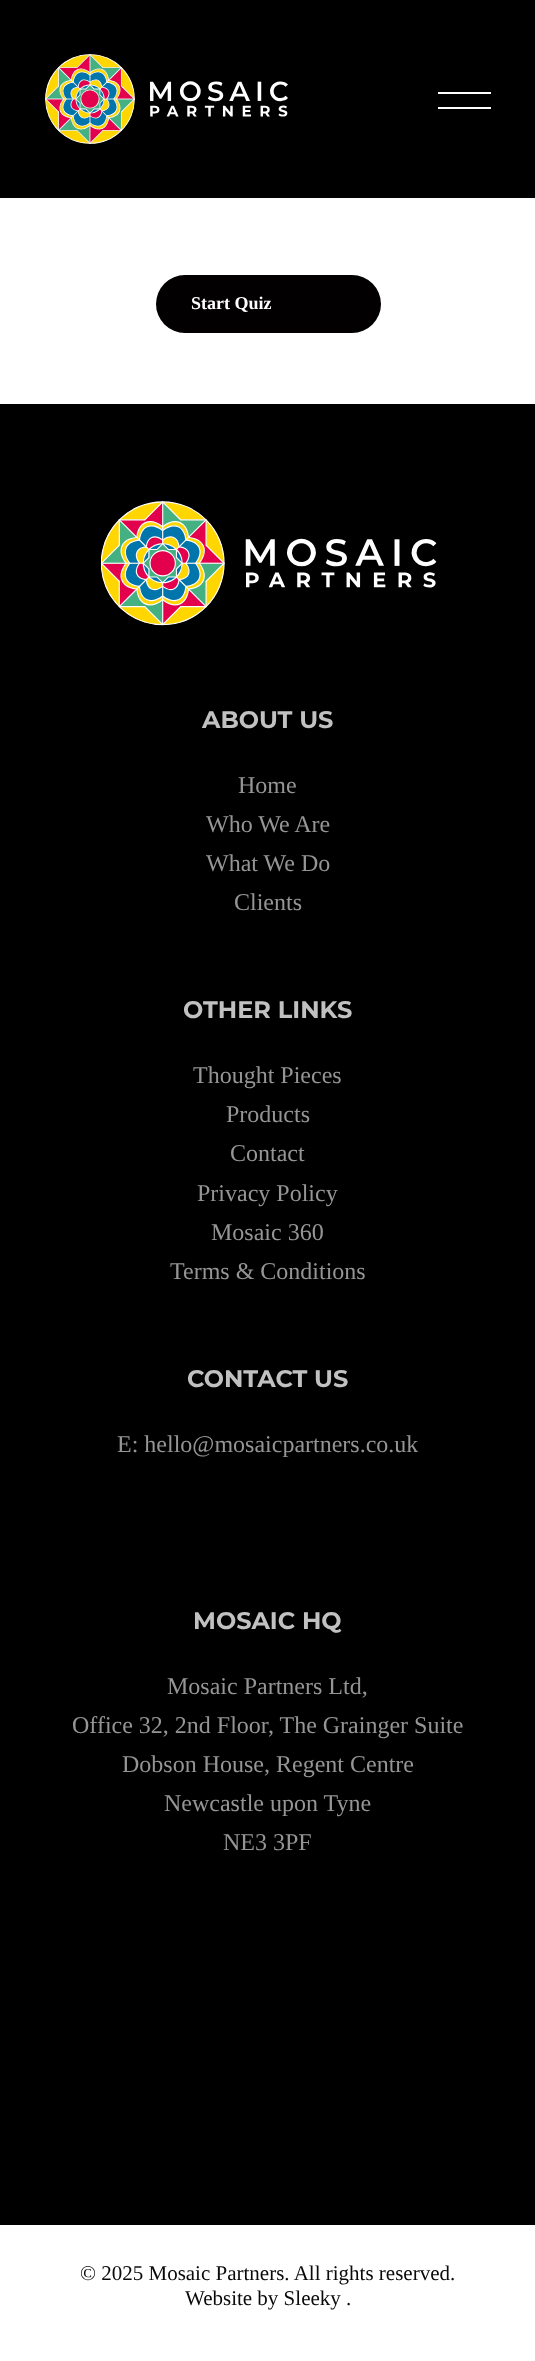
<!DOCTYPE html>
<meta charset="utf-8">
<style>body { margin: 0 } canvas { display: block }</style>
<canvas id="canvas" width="535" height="2361"></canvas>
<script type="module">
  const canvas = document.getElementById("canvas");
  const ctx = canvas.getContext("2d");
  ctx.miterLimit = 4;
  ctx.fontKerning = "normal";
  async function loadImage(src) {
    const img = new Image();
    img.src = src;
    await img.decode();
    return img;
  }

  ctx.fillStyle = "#ffffff";
  ctx.fillRect(0, 0, 535, 2361);
  ctx.fillStyle = "#000000";
  ctx.fillRect(0, 0, 535, 198);
  ctx.drawImage(await loadImage("img1.png"), 45, 54, 243, 90);
  ctx.fillStyle = "#ffffff";
  ctx.fillRect(438, 92, 53, 2);
  ctx.fillRect(438, 107, 53, 2);
  ctx.fillStyle = "#020000";
  ctx.beginPath();
  ctx.roundRect(156, 275, 225, 58, 29);
  ctx.fill();
  ctx.font = "bold 18px Liberation Serif";
  ctx.fillStyle = "#ffffff";
  ctx.fillText("Start Quiz", 191, 309);
  ctx.fillStyle = "#000000";
  ctx.fillRect(0, 404, 535, 1821);
  ctx.drawImage(await loadImage("img2.png"), 101, 501, 336, 125);
  ctx.font = "bold 24px Montserrat";
  ctx.fillStyle = "#c1c1c1";
  ctx.fillText("ABOUT US", 202, 728);
  ctx.font = "24px Liberation Serif";
  ctx.fillStyle = "#959595";
  ctx.fillText("Home", 238, 793);
  ctx.fillText("Who We Are", 206, 832);
  ctx.fillText("What We Do", 206, 871);
  ctx.fillText("Clients", 234, 910);
  ctx.font = "bold 24px Montserrat";
  ctx.fillStyle = "#c1c1c1";
  ctx.fillText("OTHER LINKS", 183, 1018);
  ctx.font = "24px Liberation Serif";
  ctx.fillStyle = "#959595";
  ctx.fillText("Thought Pieces", 193, 1083);
  ctx.fillText("Products", 226, 1122);
  ctx.fillText("Contact", 230, 1161);
  ctx.fillText("Privacy Policy", 197, 1201);
  ctx.fillText("Mosaic 360", 211, 1240);
  ctx.fillText("Terms & Conditions", 170, 1279);
  ctx.font = "bold 24px Montserrat";
  ctx.fillStyle = "#c1c1c1";
  ctx.fillText("CONTACT US", 187, 1387);
  ctx.font = "24px Liberation Serif";
  ctx.fillStyle = "#959595";
  ctx.fillText("E: hello@mosaicpartners.co.uk", 117, 1452);
  ctx.font = "bold 24px Montserrat";
  ctx.fillStyle = "#c1c1c1";
  ctx.fillText("MOSAIC HQ", 193, 1629);
  ctx.font = "24px Liberation Serif";
  ctx.fillStyle = "#959595";
  ctx.fillText("Mosaic Partners Ltd,", 167, 1694);
  ctx.fillText("Office 32, 2nd Floor, The Grainger Suite", 72, 1733);
  ctx.fillText("Dobson House, Regent Centre", 122, 1772);
  ctx.fillText("Newcastle upon Tyne", 164, 1811);
  ctx.fillText("NE3 3PF", 223, 1850);
  ctx.font = "21px Liberation Serif";
  ctx.fillStyle = "#0a0a0a";
  ctx.fillText("© 2025 Mosaic Partners. All rights reserved.", 80, 2280);
  ctx.fillText("Website by Sleeky .", 185, 2305);
</script>
